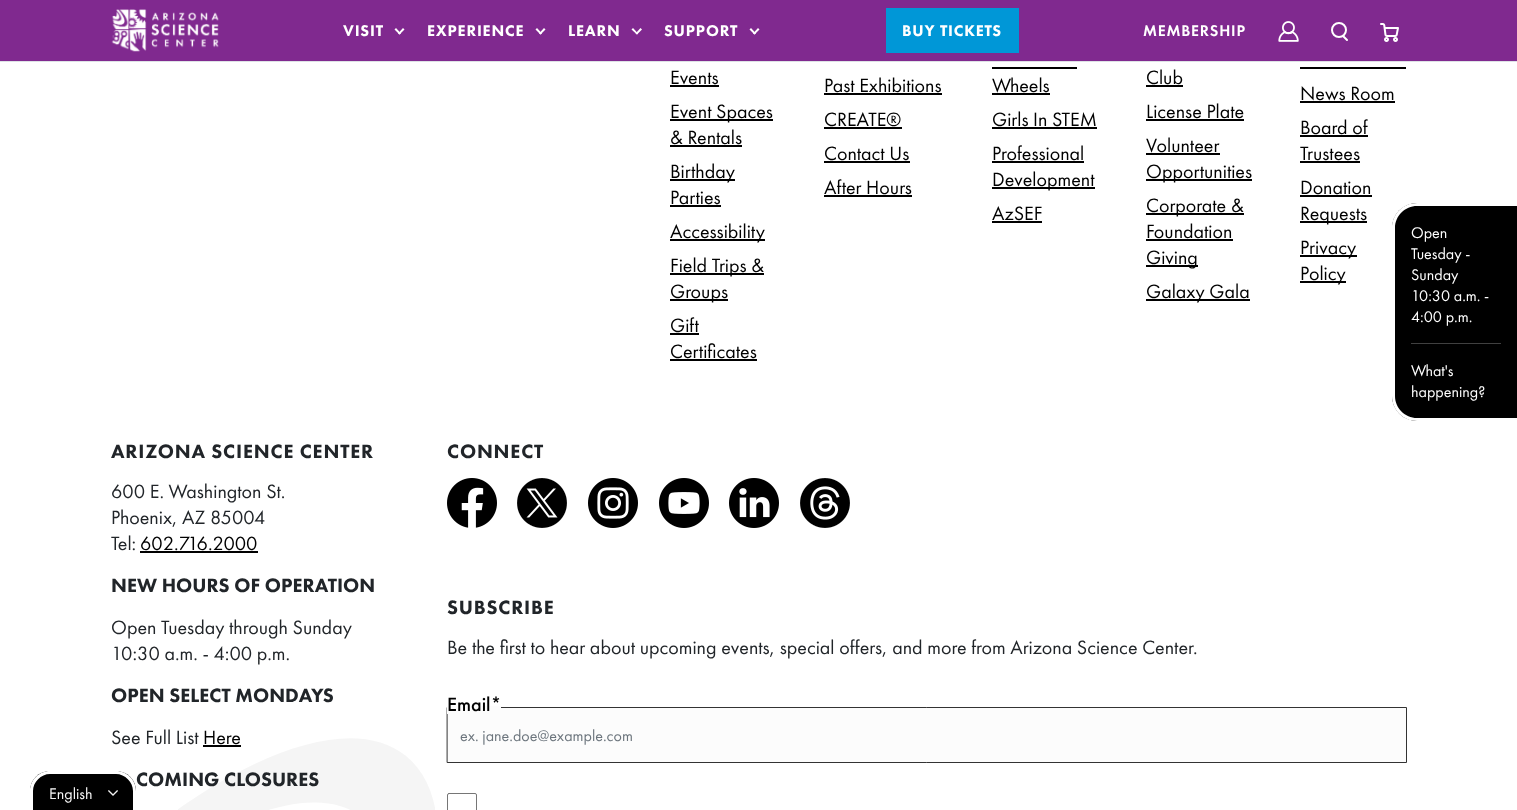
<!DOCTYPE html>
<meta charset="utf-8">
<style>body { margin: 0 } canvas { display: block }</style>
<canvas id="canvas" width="1517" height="810"></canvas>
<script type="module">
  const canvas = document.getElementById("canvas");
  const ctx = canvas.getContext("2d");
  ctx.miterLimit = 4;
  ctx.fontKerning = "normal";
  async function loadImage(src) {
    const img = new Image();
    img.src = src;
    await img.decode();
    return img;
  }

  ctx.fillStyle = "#ffffff";
  ctx.fillRect(0, 0, 1517, 810);
  ctx.drawImage(await loadImage("img1.png"), 178, 738, 257, 72);
  ctx.fillStyle = "#80298f";
  ctx.fillRect(0, 0, 1517, 61);
  ctx.drawImage(await loadImage("img2.png"), 111, 9, 108, 43);
  ctx.letterSpacing = "0.8px";
  ctx.font = "900 16px Futura PT";
  ctx.fillStyle = "#ffffff";
  ctx.fillText("VISIT", 343, 36);
  ctx.beginPath();
  ctx.moveTo(404.5, 29.5);
  ctx.lineTo(399.5, 34.5);
  ctx.lineTo(398, 33.5);
  ctx.lineTo(403, 28);
  ctx.closePath();
  ctx.fill();
  ctx.beginPath();
  ctx.moveTo(401, 33.5);
  ctx.lineTo(399.5, 34.5);
  ctx.lineTo(394.5, 29.5);
  ctx.lineTo(396, 28);
  ctx.closePath();
  ctx.fill();
  ctx.fillText("EXPERIENCE", 427, 36);
  ctx.beginPath();
  ctx.moveTo(545.5, 29.5);
  ctx.lineTo(540.5, 34.5);
  ctx.lineTo(539, 33.5);
  ctx.lineTo(544, 28);
  ctx.closePath();
  ctx.fill();
  ctx.beginPath();
  ctx.moveTo(542, 33.5);
  ctx.lineTo(540.5, 34.5);
  ctx.lineTo(535.5, 29.5);
  ctx.lineTo(537, 28);
  ctx.closePath();
  ctx.fill();
  ctx.fillText("LEARN", 568, 36);
  ctx.beginPath();
  ctx.moveTo(642, 29.5);
  ctx.lineTo(637, 34.5);
  ctx.lineTo(635.5, 33.5);
  ctx.lineTo(640.5, 28);
  ctx.closePath();
  ctx.fill();
  ctx.beginPath();
  ctx.moveTo(638, 33.5);
  ctx.lineTo(637, 34.5);
  ctx.lineTo(631.5, 29.5);
  ctx.lineTo(633, 28);
  ctx.closePath();
  ctx.fill();
  ctx.fillText("SUPPORT", 664, 36);
  ctx.beginPath();
  ctx.moveTo(759.5, 29.5);
  ctx.lineTo(754.5, 34.5);
  ctx.lineTo(753, 33.5);
  ctx.lineTo(758, 28);
  ctx.closePath();
  ctx.fill();
  ctx.beginPath();
  ctx.moveTo(756, 33.5);
  ctx.lineTo(754.5, 34.5);
  ctx.lineTo(749.5, 29.5);
  ctx.lineTo(751, 28);
  ctx.closePath();
  ctx.fill();
  ctx.fillStyle = "#0097d7";
  ctx.fillRect(886, 8, 133, 45);
  ctx.fillStyle = "#ffffff";
  ctx.fillText("BUY TICKETS", 902, 36);
  ctx.font = "500 16px 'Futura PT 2'";
  ctx.fillText("MEMBERSHIP", 1143, 36);
  ctx.drawImage(await loadImage("img3.png"), 1278, 21, 21, 21);
  ctx.beginPath();
  ctx.arc(1339, 30, 7, 0, Math.PI * 2);
  ctx.strokeStyle = "#ffffff";
  ctx.lineWidth = 2;
  ctx.stroke();
  ctx.beginPath();
  ctx.moveTo(1347, 40);
  ctx.lineTo(1343, 36);
  ctx.lineCap = "round";
  ctx.lineJoin = "round";
  ctx.stroke();
  ctx.drawImage(await loadImage("img4.png"), 1380, 23, 19, 19);
  ctx.fillStyle = "#dee2e6";
  ctx.fillRect(0, 61, 1517, 1);
  ctx.letterSpacing = "0px";
  ctx.font = "20px Futura PT";
  ctx.fillStyle = "#000000";
  ctx.fillText("Events", 670, 84);
  ctx.fillRect(670, 85, 49, 2);
  ctx.fillRect(670, 119, 103, 2);
  ctx.fillText("Event Spaces", 670, 118);
  ctx.fillText("& Rentals", 670, 144);
  ctx.fillRect(670, 145, 72, 2);
  ctx.fillRect(670, 179, 65, 2);
  ctx.fillText("Birthday", 670, 178);
  ctx.fillText("Parties", 670, 204);
  ctx.fillRect(670, 205, 51, 2);
  ctx.fillRect(670, 239, 95, 2);
  ctx.fillText("Accessibility", 670, 238);
  ctx.fillRect(670, 273, 94, 2);
  ctx.fillText("Field Trips &", 670, 272);
  ctx.fillRect(670, 299, 58, 2);
  ctx.fillText("Groups", 670, 298);
  ctx.fillText("Gift", 670, 332);
  ctx.fillRect(670, 333, 29, 2);
  ctx.fillText("Certificates", 670, 358);
  ctx.fillRect(670, 359, 87, 2);
  ctx.fillText("Past Exhibitions", 824, 92);
  ctx.fillRect(824, 93, 118, 2);
  ctx.fillText("CREATE®", 824, 126);
  ctx.fillRect(824, 127, 78, 2);
  ctx.fillText("Contact Us", 824, 160);
  ctx.fillRect(824, 161, 86, 2);
  ctx.fillText("After Hours", 824, 194);
  ctx.fillRect(824, 195, 88, 2);
  ctx.fillText("Wheels", 992, 92);
  ctx.fillRect(992, 67, 85, 2);
  ctx.fillRect(992, 93, 58, 2);
  ctx.fillText("Girls In STEM", 992, 126);
  ctx.fillRect(992, 127, 105, 2);
  ctx.fillText("Professional", 992, 160);
  ctx.fillRect(992, 161, 92, 2);
  ctx.fillRect(992, 187, 103, 2);
  ctx.fillText("Development", 992, 186);
  ctx.fillText("AzSEF", 992, 220);
  ctx.fillRect(992, 221, 50, 2);
  ctx.fillText("Club", 1146, 84);
  ctx.fillRect(1146, 85, 37, 2);
  ctx.fillText("License Plate", 1146, 118);
  ctx.fillRect(1146, 119, 98, 2);
  ctx.fillText("Volunteer", 1146, 152);
  ctx.fillRect(1146, 153, 74, 2);
  ctx.fillRect(1146, 179, 106, 2);
  ctx.fillText("Opportunities", 1146, 178);
  ctx.fillRect(1146, 213, 98, 2);
  ctx.fillText("Corporate &", 1146, 212);
  ctx.fillText("Foundation", 1146, 238);
  ctx.fillRect(1146, 239, 87, 2);
  ctx.fillRect(1146, 265, 52, 2);
  ctx.fillText("Giving", 1146, 264);
  ctx.fillRect(1146, 299, 104, 2);
  ctx.fillText("Galaxy Gala", 1146, 298);
  ctx.fillRect(1300, 67, 106, 2);
  ctx.fillText("News Room", 1300, 100);
  ctx.fillRect(1300, 101, 95, 2);
  ctx.fillText("Board of", 1300, 134);
  ctx.fillRect(1300, 135, 68, 2);
  ctx.fillText("Trustees", 1300, 160);
  ctx.fillRect(1300, 161, 60, 2);
  ctx.fillText("Donation", 1300, 194);
  ctx.fillRect(1300, 195, 72, 2);
  ctx.fillRect(1300, 221, 67, 2);
  ctx.fillText("Requests", 1300, 220);
  ctx.fillRect(1300, 255, 57, 2);
  ctx.fillText("Privacy", 1300, 254);
  ctx.fillRect(1300, 281, 46, 2);
  ctx.fillText("Policy", 1300, 280);
  ctx.letterSpacing = "0.8px";
  ctx.font = "900 20px Futura PT";
  ctx.fillStyle = "#212529";
  ctx.fillText("ARIZONA SCIENCE CENTER", 111, 458);
  ctx.letterSpacing = "0px";
  ctx.font = "20px Futura PT";
  ctx.fillText("600 E. Washington St.", 111, 498);
  ctx.fillText("Phoenix, AZ 85004", 111, 524);
  ctx.fillText("Tel:", 111, 550);
  ctx.fillStyle = "#000000";
  ctx.fillText("602.716.2000", 140, 550);
  ctx.fillRect(140, 551, 118, 2);
  ctx.font = "900 20px Futura PT";
  ctx.fillStyle = "#212529";
  ctx.fillText("NEW HOURS OF OPERATION", 111, 592);
  ctx.font = "20px Futura PT";
  ctx.fillText("Open Tuesday through Sunday", 111, 634);
  ctx.fillText("10:30 a.m. - 4:00 p.m.", 111, 660);
  ctx.font = "900 20px Futura PT";
  ctx.fillText("OPEN SELECT MONDAYS", 111, 702);
  ctx.font = "20px Futura PT";
  ctx.fillText("See Full List", 111, 744);
  ctx.fillStyle = "#000000";
  ctx.fillText("Here", 203, 744);
  ctx.fillRect(203, 745, 38, 2);
  ctx.font = "900 20px Futura PT";
  ctx.fillStyle = "#212529";
  ctx.fillText("COMING CLOSURES", 136, 786);
  ctx.letterSpacing = "0.8px";
  ctx.fillText("CONNECT", 447, 458);
  ctx.drawImage(await loadImage("img5.png"), 447, 478, 50, 50);
  ctx.drawImage(await loadImage("img6.png"), 517, 478, 50, 50);
  ctx.drawImage(await loadImage("img7.png"), 588, 478, 50, 50);
  ctx.drawImage(await loadImage("img8.png"), 659, 478, 50, 50);
  ctx.drawImage(await loadImage("img9.png"), 729, 478, 50, 50);
  ctx.drawImage(await loadImage("img10.png"), 800, 478, 50, 50);
  ctx.fillText("SUBSCRIBE", 447, 614);
  ctx.letterSpacing = "0px";
  ctx.font = "20px Futura PT";
  ctx.fillText("Be the first to hear about upcoming events, special offers, and more from Arizona Science Center.", 447, 654);
  ctx.fillStyle = "#fcfcfc";
  ctx.beginPath();
  ctx.rect(447.5, 707.5, 959, 55);
  ctx.fill();
  ctx.strokeStyle = "#333333";
  ctx.lineWidth = 1;
  ctx.lineJoin = "miter";
  ctx.stroke();
  ctx.fillRect(447, 706, 54, 8);
  ctx.font = "500 20px Futura PT";
  ctx.fillStyle = "#000000";
  ctx.fillText("Email*", 447, 711);
  ctx.font = "16px Futura PT";
  ctx.fillStyle = "#6c757d";
  ctx.fillText("ex. jane.doe@example.com", 460, 741);
  ctx.beginPath();
  ctx.roundRect(447.5, 793.5, 29, 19, 1.5);
  ctx.strokeStyle = "#767676";
  ctx.stroke();
  ctx.fillStyle = "#000000";
  ctx.beginPath();
  ctx.roundRect(1392, 203, 125, 218, [25, 0, 0, 25]);
  ctx.fill();
  ctx.fillStyle = "#ffffff";
  ctx.beginPath();
  ctx.moveTo(1417, 203);
  ctx.lineTo(1517, 203);
  ctx.lineTo(1517, 421);
  ctx.lineTo(1417, 421);
  ctx.bezierCurveTo(1403, 421, 1392, 410, 1392, 396);
  ctx.lineTo(1392, 228);
  ctx.bezierCurveTo(1392, 214, 1403, 203, 1417, 203);
  ctx.closePath();
  ctx.moveTo(1417, 206);
  ctx.lineTo(1517, 206);
  ctx.lineTo(1517, 418);
  ctx.lineTo(1417, 418);
  ctx.bezierCurveTo(1405, 418, 1395, 408, 1395, 396);
  ctx.lineTo(1395, 228);
  ctx.bezierCurveTo(1395, 216, 1405, 206, 1417, 206);
  ctx.closePath();
  ctx.fill("evenodd");
  ctx.fillText("Open", 1411, 238);
  ctx.fillText("Tuesday -", 1411, 259);
  ctx.fillText("Sunday", 1411, 280);
  ctx.fillText("10:30 a.m. -", 1411, 301);
  ctx.fillText("4:00 p.m.", 1411, 322);
  ctx.fillStyle = "#404040";
  ctx.fillRect(1411, 343, 90, 1);
  ctx.fillStyle = "#ffffff";
  ctx.fillText("What's", 1411, 376);
  ctx.fillText("happening?", 1411, 397);
  ctx.fillStyle = "#000000";
  ctx.beginPath();
  ctx.roundRect(30, 771, 106, 39, [20, 20, 0, 0]);
  ctx.fill();
  ctx.fillStyle = "#ffffff";
  ctx.beginPath();
  ctx.moveTo(50, 771);
  ctx.lineTo(116, 771);
  ctx.bezierCurveTo(127, 771, 136, 780, 136, 791);
  ctx.lineTo(136, 810);
  ctx.lineTo(30, 810);
  ctx.lineTo(30, 791);
  ctx.bezierCurveTo(30, 780, 39, 771, 50, 771);
  ctx.closePath();
  ctx.moveTo(50, 774);
  ctx.lineTo(116, 774);
  ctx.bezierCurveTo(125, 774, 133, 782, 133, 791);
  ctx.lineTo(133, 810);
  ctx.lineTo(33, 810);
  ctx.lineTo(33, 791);
  ctx.bezierCurveTo(33, 782, 41, 774, 50, 774);
  ctx.closePath();
  ctx.fill("evenodd");
  ctx.fillStyle = "#f7f7f7";
  ctx.fillText("English", 49, 799);
  ctx.drawImage(await loadImage("img11.png"), 108, 790, 10, 6);
</script>
